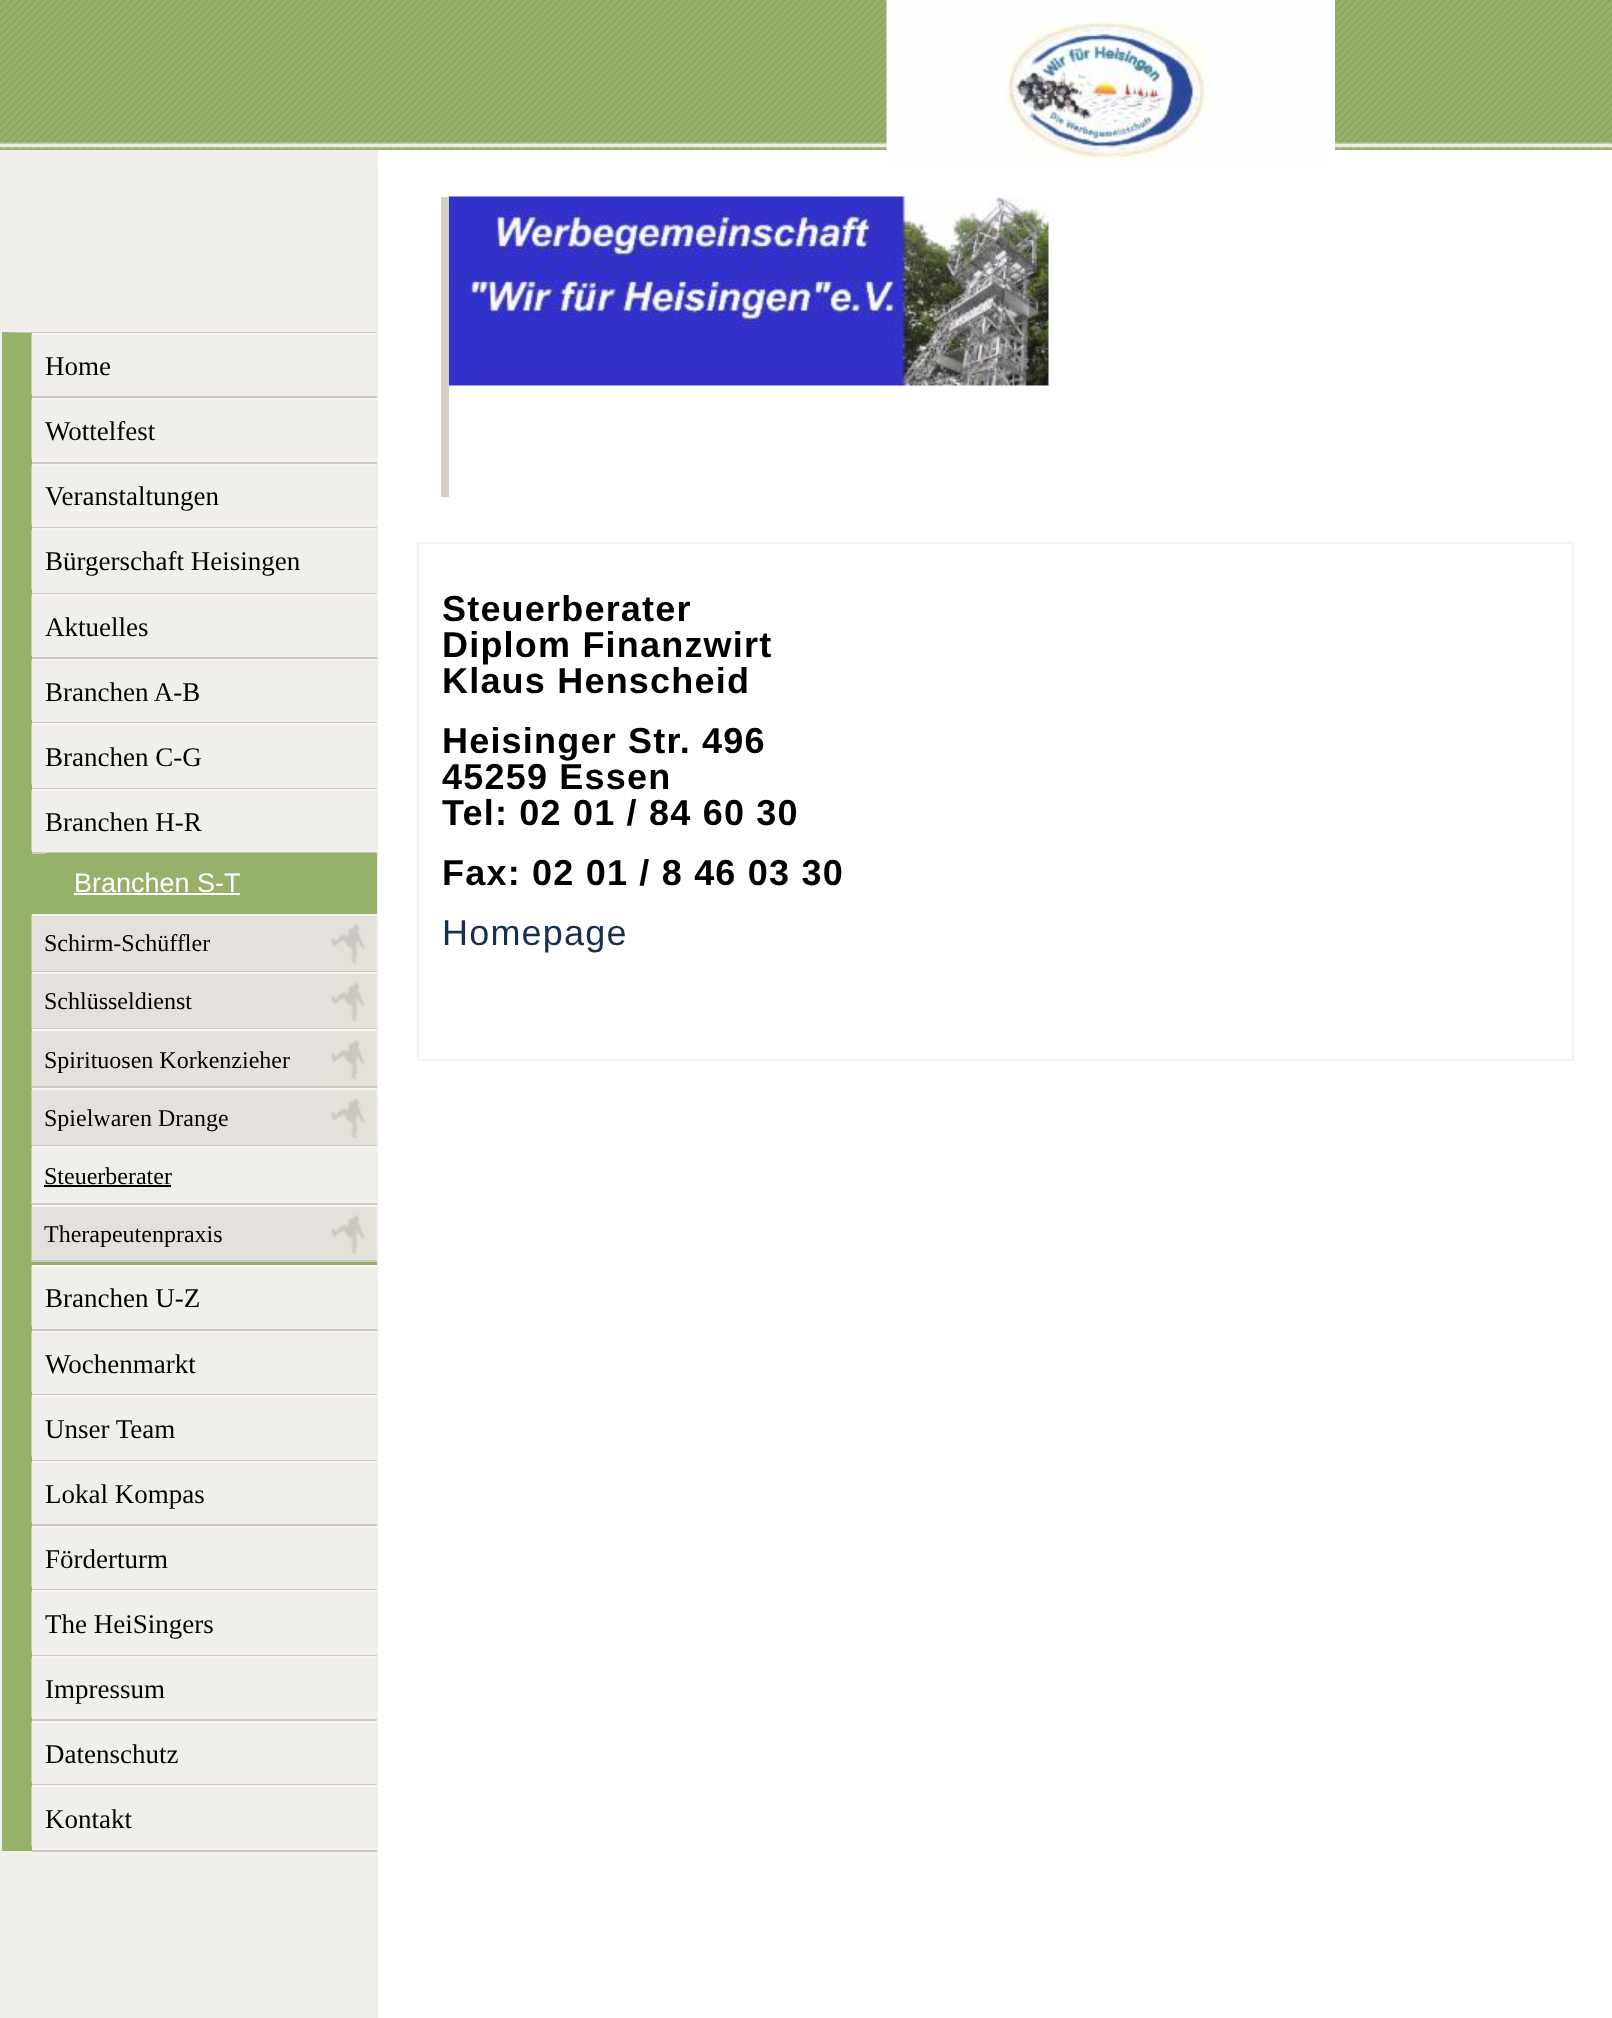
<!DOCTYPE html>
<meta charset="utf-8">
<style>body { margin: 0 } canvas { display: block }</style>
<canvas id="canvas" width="1612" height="2018"></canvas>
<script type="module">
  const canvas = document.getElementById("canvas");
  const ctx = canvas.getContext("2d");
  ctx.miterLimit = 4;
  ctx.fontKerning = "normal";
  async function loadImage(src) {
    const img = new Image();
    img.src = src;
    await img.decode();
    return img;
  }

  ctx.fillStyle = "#ffffff";
  ctx.fillRect(0, 0, 1612, 2018);
  ctx.drawImage(await loadImage("img1.png"), 0, 0, 1612, 150);
  ctx.drawImage(await loadImage("img2.png"), 886, 0, 449, 168);
  ctx.fillStyle = "#f0efeb";
  ctx.fillRect(0, 150, 378, 1868);
  ctx.fillStyle = "#cfc9bc";
  ctx.beginPath();
  ctx.moveTo(2, 332);
  ctx.lineTo(376, 332);
  ctx.lineTo(376, 333);
  ctx.lineTo(32, 333);
  ctx.closePath();
  ctx.fill();
  ctx.fillStyle = "#96b269";
  ctx.beginPath();
  ctx.moveTo(2, 1851);
  ctx.lineTo(2, 332);
  ctx.lineTo(32, 333);
  ctx.lineTo(32, 1851);
  ctx.closePath();
  ctx.fill();
  ctx.drawImage(await loadImage("img3.png"), 31, 334, 1, 61);
  ctx.fillStyle = "#f7f5f2";
  ctx.fillRect(32, 333, 345, 2);
  ctx.fillStyle = "#cfc9bc";
  ctx.fillRect(32, 396, 345, 2);
  ctx.font = "27px Liberation Serif";
  ctx.fillStyle = "#000000";
  ctx.fillText("Home", 45, 375);
  ctx.fillStyle = "#c3d1aa";
  ctx.fillRect(31, 399, 1, 60);
  ctx.fillStyle = "#f7f5f2";
  ctx.fillRect(32, 398, 345, 2);
  ctx.fillStyle = "#cfc9bc";
  ctx.fillRect(32, 462, 345, 2);
  ctx.fillStyle = "#000000";
  ctx.fillText("Wottelfest", 45, 440);
  ctx.fillStyle = "#c3d1aa";
  ctx.fillRect(31, 465, 1, 60);
  ctx.fillStyle = "#f7f5f2";
  ctx.fillRect(32, 464, 345, 2);
  ctx.fillStyle = "#cfc9bc";
  ctx.fillRect(32, 527, 345, 1);
  ctx.fillStyle = "#000000";
  ctx.fillText("Veranstaltungen", 45, 505);
  ctx.drawImage(await loadImage("img3.png"), 31, 529, 1, 61);
  ctx.fillStyle = "#f7f5f2";
  ctx.fillRect(32, 528, 345, 2);
  ctx.fillStyle = "#cfc9bc";
  ctx.fillRect(32, 593, 345, 1);
  ctx.fillStyle = "#000000";
  ctx.fillText("Bürgerschaft Heisingen", 45, 570);
  ctx.drawImage(await loadImage("img3.png"), 31, 595, 1, 61);
  ctx.fillStyle = "#f7f5f2";
  ctx.fillRect(32, 594, 345, 2);
  ctx.fillStyle = "#cfc9bc";
  ctx.fillRect(32, 657, 345, 2);
  ctx.fillStyle = "#000000";
  ctx.fillText("Aktuelles", 45, 636);
  ctx.fillStyle = "#c3d1aa";
  ctx.fillRect(31, 660, 1, 60);
  ctx.fillStyle = "#f7f5f2";
  ctx.fillRect(32, 659, 345, 2);
  ctx.fillStyle = "#cfc9bc";
  ctx.fillRect(32, 722, 345, 1);
  ctx.fillStyle = "#000000";
  ctx.fillText("Branchen A-B", 45, 701);
  ctx.drawImage(await loadImage("img3.png"), 31, 724, 1, 61);
  ctx.fillStyle = "#f7f5f2";
  ctx.fillRect(32, 723, 345, 2);
  ctx.fillStyle = "#cfc9bc";
  ctx.fillRect(32, 788, 345, 1);
  ctx.fillStyle = "#000000";
  ctx.fillText("Branchen C-G", 45, 766);
  ctx.drawImage(await loadImage("img3.png"), 31, 790, 1, 61);
  ctx.fillStyle = "#f7f5f2";
  ctx.fillRect(32, 789, 345, 2);
  ctx.fillStyle = "#cfc9bc";
  ctx.fillRect(32, 852, 345, 2);
  ctx.fillStyle = "#000000";
  ctx.fillText("Branchen H-R", 45, 831);
  ctx.fillStyle = "#96b16a";
  ctx.fillRect(46, 853, 331, 58);
  ctx.fillStyle = "#96b269";
  ctx.fillRect(47, 911, 330, 3);
  ctx.fillRect(32, 854, 15, 60);
  ctx.font = "27px Liberation Sans";
  ctx.fillStyle = "#ffffff";
  ctx.fillText("Branchen S-T", 74, 892);
  ctx.fillRect(74, 893, 166, 2);
  ctx.fillStyle = "#96b269";
  ctx.fillRect(32, 1262, 345, 3);
  ctx.drawImage(await loadImage("img4.png"), 31, 915, 346, 57);
  ctx.fillStyle = "#f7f5f2";
  ctx.fillRect(32, 914, 345, 2);
  ctx.fillStyle = "#cfc9bc";
  ctx.fillRect(32, 971, 345, 1);
  ctx.font = "24px Liberation Serif";
  ctx.fillStyle = "#000000";
  ctx.fillText("Schirm-Schüffler", 44, 951);
  ctx.drawImage(await loadImage("img5.png"), 31, 973, 346, 56);
  ctx.fillStyle = "#f7f5f2";
  ctx.fillRect(32, 972, 345, 2);
  ctx.fillStyle = "#cfc9bc";
  ctx.fillRect(32, 1028, 345, 1);
  ctx.fillStyle = "#000000";
  ctx.fillText("Schlüsseldienst", 44, 1009);
  ctx.drawImage(await loadImage("img6.png"), 31, 1030, 346, 58);
  ctx.fillStyle = "#f7f5f2";
  ctx.fillRect(32, 1029, 345, 2);
  ctx.fillStyle = "#cfc9bc";
  ctx.fillRect(32, 1086, 345, 2);
  ctx.fillStyle = "#000000";
  ctx.fillText("Spirituosen Korkenzieher", 44, 1068);
  ctx.drawImage(await loadImage("img4.png"), 31, 1089, 346, 57);
  ctx.fillStyle = "#f7f5f2";
  ctx.fillRect(32, 1088, 345, 2);
  ctx.fillStyle = "#cfc9bc";
  ctx.fillRect(32, 1145, 345, 1);
  ctx.fillStyle = "#000000";
  ctx.fillText("Spielwaren Drange", 44, 1126);
  ctx.drawImage(await loadImage("img7.png"), 31, 1147, 1, 58);
  ctx.fillStyle = "#f7f5f2";
  ctx.fillRect(32, 1146, 345, 2);
  ctx.fillStyle = "#cfc9bc";
  ctx.fillRect(32, 1203, 345, 2);
  ctx.fillStyle = "#000000";
  ctx.fillText("Steuerberater", 44, 1184);
  ctx.fillRect(44, 1185, 127, 2);
  ctx.drawImage(await loadImage("img8.png"), 31, 1206, 346, 56);
  ctx.fillStyle = "#f7f5f2";
  ctx.fillRect(32, 1205, 345, 2);
  ctx.fillStyle = "#cfc9bc";
  ctx.fillRect(32, 1260, 345, 2);
  ctx.fillStyle = "#000000";
  ctx.fillText("Therapeutenpraxis", 44, 1242);
  ctx.fillStyle = "#c3d1aa";
  ctx.fillRect(31, 1266, 1, 60);
  ctx.fillStyle = "#f7f5f2";
  ctx.fillRect(32, 1265, 345, 2);
  ctx.fillStyle = "#cfc9bc";
  ctx.fillRect(32, 1329, 345, 2);
  ctx.font = "27px Liberation Serif";
  ctx.fillStyle = "#000000";
  ctx.fillText("Branchen U-Z", 45, 1307);
  ctx.fillStyle = "#c3d1aa";
  ctx.fillRect(31, 1332, 1, 60);
  ctx.fillStyle = "#f7f5f2";
  ctx.fillRect(32, 1331, 345, 2);
  ctx.fillStyle = "#cfc9bc";
  ctx.fillRect(32, 1394, 345, 1);
  ctx.fillStyle = "#000000";
  ctx.fillText("Wochenmarkt", 45, 1373);
  ctx.drawImage(await loadImage("img3.png"), 31, 1396, 1, 61);
  ctx.fillStyle = "#f7f5f2";
  ctx.fillRect(32, 1395, 345, 2);
  ctx.fillStyle = "#cfc9bc";
  ctx.fillRect(32, 1460, 345, 1);
  ctx.fillStyle = "#000000";
  ctx.fillText("Unser Team", 45, 1438);
  ctx.drawImage(await loadImage("img3.png"), 31, 1462, 1, 61);
  ctx.fillStyle = "#f7f5f2";
  ctx.fillRect(32, 1461, 345, 2);
  ctx.fillStyle = "#cfc9bc";
  ctx.fillRect(32, 1524, 345, 2);
  ctx.fillStyle = "#000000";
  ctx.fillText("Lokal Kompas", 45, 1503);
  ctx.fillStyle = "#c3d1aa";
  ctx.fillRect(31, 1527, 1, 60);
  ctx.fillStyle = "#f7f5f2";
  ctx.fillRect(32, 1526, 345, 2);
  ctx.fillStyle = "#cfc9bc";
  ctx.fillRect(32, 1589, 345, 1);
  ctx.fillStyle = "#000000";
  ctx.fillText("Förderturm", 45, 1568);
  ctx.drawImage(await loadImage("img3.png"), 31, 1591, 1, 61);
  ctx.fillStyle = "#f7f5f2";
  ctx.fillRect(32, 1590, 345, 2);
  ctx.fillStyle = "#cfc9bc";
  ctx.fillRect(32, 1655, 345, 1);
  ctx.fillStyle = "#000000";
  ctx.fillText("The HeiSingers", 45, 1633);
  ctx.drawImage(await loadImage("img3.png"), 31, 1657, 1, 61);
  ctx.fillStyle = "#f7f5f2";
  ctx.fillRect(32, 1656, 345, 2);
  ctx.fillStyle = "#cfc9bc";
  ctx.fillRect(32, 1719, 345, 2);
  ctx.fillStyle = "#000000";
  ctx.fillText("Impressum", 45, 1698);
  ctx.fillStyle = "#c3d1aa";
  ctx.fillRect(31, 1722, 1, 60);
  ctx.fillStyle = "#f7f5f2";
  ctx.fillRect(32, 1721, 345, 2);
  ctx.fillStyle = "#cfc9bc";
  ctx.fillRect(32, 1784, 345, 1);
  ctx.fillStyle = "#000000";
  ctx.fillText("Datenschutz", 45, 1763);
  ctx.drawImage(await loadImage("img3.png"), 31, 1786, 1, 61);
  ctx.fillStyle = "#f7f5f2";
  ctx.fillRect(32, 1785, 345, 2);
  ctx.fillStyle = "#cfc9bc";
  ctx.fillRect(32, 1850, 345, 2);
  ctx.fillStyle = "#000000";
  ctx.fillText("Kontakt", 45, 1828);
  ctx.drawImage(await loadImage("img9.png"), 448, 196, 601, 190);
  ctx.fillStyle = "#d5d0c4";
  ctx.fillRect(441, 197, 8, 300);
  ctx.strokeStyle = "#f3f4f4";
  ctx.lineWidth = 2;
  ctx.strokeRect(418, 543, 1155, 517);
  ctx.letterSpacing = "1.2px";
  ctx.font = "bold 36px Liberation Sans";
  ctx.fillStyle = "#000000";
  ctx.fillText("Steuerberater", 442, 621);
  ctx.fillText("Diplom Finanzwirt", 442, 657);
  ctx.fillText("Klaus Henscheid", 442, 693);
  ctx.fillText("Heisinger Str. 496", 442, 753);
  ctx.fillText("45259 Essen", 442, 789);
  ctx.fillText("Tel: 02 01 / 84 60 30", 442, 825);
  ctx.fillText("Fax: 02 01 / 8 46 03 30", 442, 885);
  ctx.font = "36px Liberation Sans";
  ctx.fillStyle = "#172d52";
  ctx.fillText("Homepage", 442, 945);
</script>
